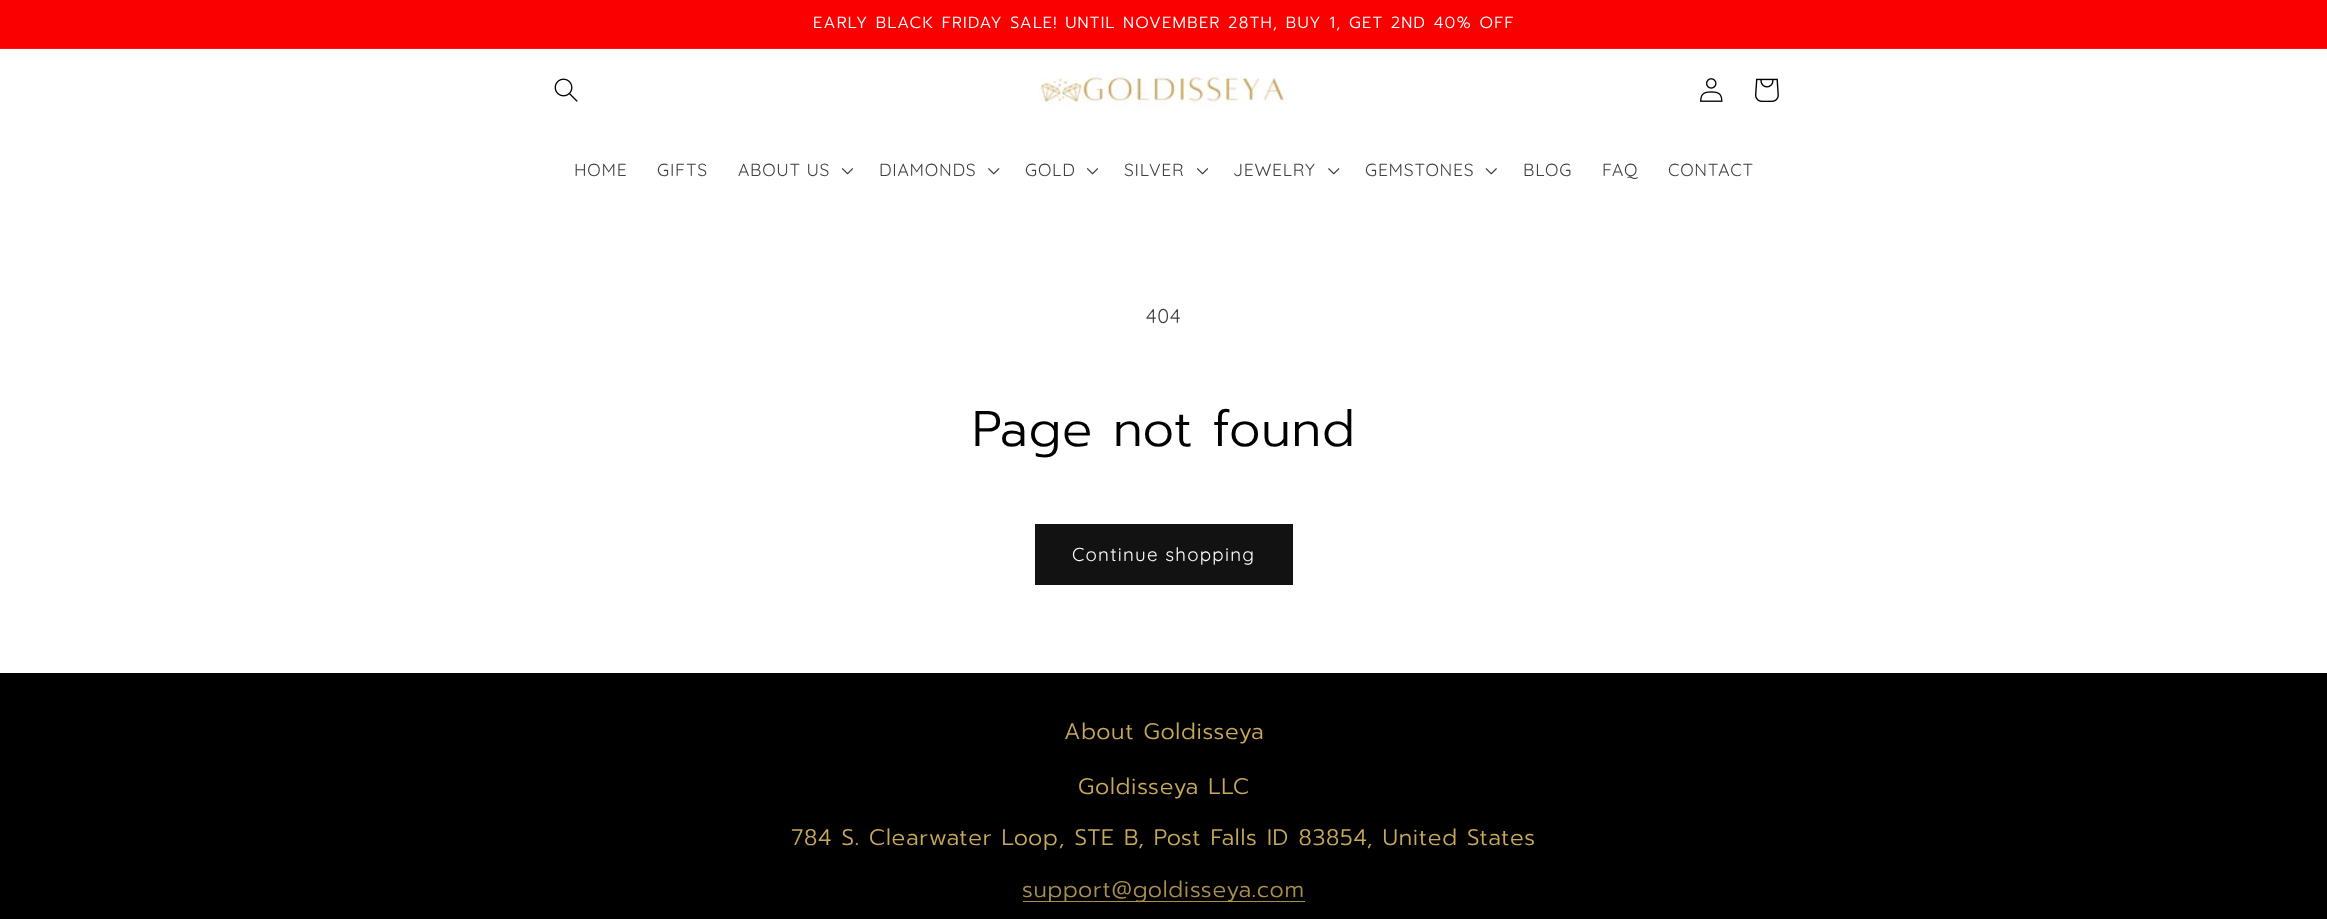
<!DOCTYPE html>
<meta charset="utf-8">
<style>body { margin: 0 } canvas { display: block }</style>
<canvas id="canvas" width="2327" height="919"></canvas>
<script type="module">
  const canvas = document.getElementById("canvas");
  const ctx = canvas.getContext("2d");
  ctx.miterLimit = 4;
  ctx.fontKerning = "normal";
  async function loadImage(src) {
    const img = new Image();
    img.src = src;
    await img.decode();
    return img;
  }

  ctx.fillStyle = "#ffffff";
  ctx.fillRect(0, 0, 2327, 919);
  ctx.fillStyle = "#fa0000";
  ctx.fillRect(0, 0, 2327, 48);
  ctx.fillStyle = "#fa1414";
  ctx.fillRect(0, 48, 2327, 1);
  ctx.letterSpacing = "1.25px";
  ctx.font = "300 16.25px Prompt";
  ctx.fillStyle = "#ffffff";
  ctx.fillText("EARLY BLACK FRIDAY SALE! UNTIL NOVEMBER 28TH, BUY 1, GET 2ND 40% OFF", 813, 28);
  ctx.drawImage(await loadImage("img1.png"), 554, 78, 24, 24);
  ctx.drawImage(await loadImage("img2.png"), 1039, 74, 250, 35);
  ctx.drawImage(await loadImage("img3.png"), 1700, 78, 23, 24);
  ctx.drawImage(await loadImage("img4.png"), 1755, 78, 24, 24);
  ctx.letterSpacing = "0.75px";
  ctx.font = "17.5px Quicksand";
  ctx.fillStyle = "#404040";
  ctx.fillText("HOME", 574, 176);
  ctx.fillText("GIFTS", 657, 176);
  ctx.fillText("ABOUT US", 738, 176);
  ctx.drawImage(await loadImage("img5.png"), 841, 168, 13, 7);
  ctx.fillText("DIAMONDS", 879, 176);
  ctx.drawImage(await loadImage("img6.png"), 988, 168, 12, 7);
  ctx.fillText("GOLD", 1025, 176);
  ctx.drawImage(await loadImage("img5.png"), 1086, 168, 13, 7);
  ctx.fillText("SILVER", 1124, 176);
  ctx.drawImage(await loadImage("img5.png"), 1196, 168, 13, 7);
  ctx.fillText("JEWELRY", 1233, 176);
  ctx.drawImage(await loadImage("img6.png"), 1328, 168, 12, 7);
  ctx.fillText("GEMSTONES", 1365, 176);
  ctx.drawImage(await loadImage("img7.png"), 1485, 168, 12, 7);
  ctx.fillText("BLOG", 1523, 176);
  ctx.fillText("FAQ", 1602, 176);
  ctx.fillText("CONTACT", 1668, 176);
  ctx.font = "20px Quicksand";
  ctx.fillText("404", 1146, 323);
  ctx.font = "300 50px Prompt";
  ctx.fillStyle = "#000000";
  ctx.fillText("Page not found", 972, 446);
  ctx.fillStyle = "#121212";
  ctx.fillRect(1035, 524, 258, 61);
  ctx.letterSpacing = "1.25px";
  ctx.font = "18.75px Quicksand";
  ctx.fillStyle = "#ffffff";
  ctx.fillText("Continue shopping", 1072, 561);
  ctx.fillStyle = "#000000";
  ctx.fillRect(0, 673, 2327, 246);
  ctx.letterSpacing = "0.75px";
  ctx.font = "300 22.5px Prompt";
  ctx.fillStyle = "#c8a95c";
  ctx.fillText("About Goldisseya", 1064, 739);
  ctx.fillText("Goldisseya LLC", 1078, 794);
  ctx.fillText("784 S. Clearwater Loop, STE B, Post Falls ID 83854, United States", 791, 845);
  ctx.fillStyle = "#aa904e";
  ctx.fillRect(1023, 901, 282, 1);
  ctx.fillText("support@goldisseya.com", 1022, 897);
</script>
